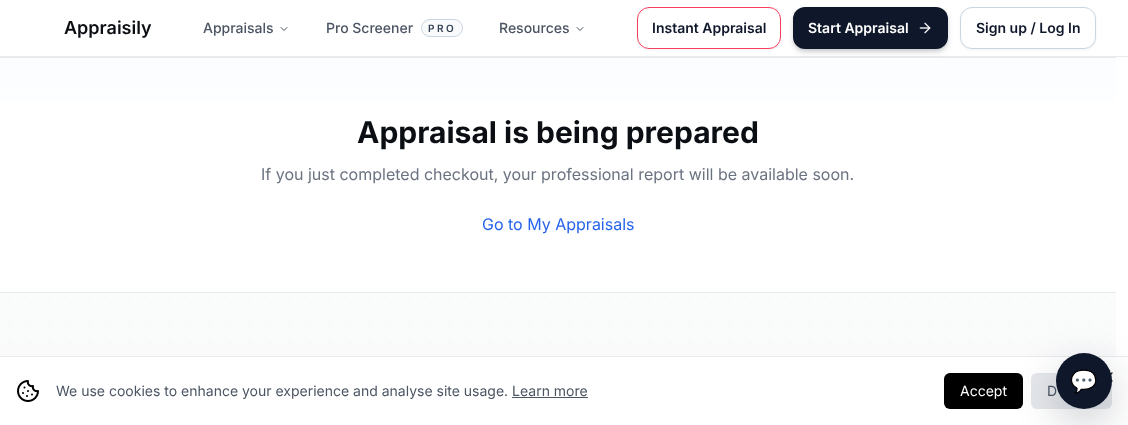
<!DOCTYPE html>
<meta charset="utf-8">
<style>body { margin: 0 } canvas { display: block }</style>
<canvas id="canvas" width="1128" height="425"></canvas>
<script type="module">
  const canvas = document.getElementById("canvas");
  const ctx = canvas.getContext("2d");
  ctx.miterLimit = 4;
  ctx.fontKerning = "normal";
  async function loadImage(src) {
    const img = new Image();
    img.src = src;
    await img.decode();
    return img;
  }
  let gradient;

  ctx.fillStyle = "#ffffff";
  ctx.fillRect(0, 0, 1128, 425);
  ctx.fillStyle = "#e8ebed";
  ctx.fillRect(0, 56, 1128, 1);
  ctx.font = "600 18px Inter";
  ctx.fillStyle = "#0b0f14";
  ctx.fillText("Appraisily", 64, 34);
  ctx.font = "500 14px Inter";
  ctx.fillStyle = "#4b5563";
  ctx.fillText("Appraisals", 203, 33);
  ctx.beginPath();
  ctx.moveTo(281, 27.5);
  ctx.lineTo(284, 30.5);
  ctx.lineTo(287, 27.5);
  ctx.strokeStyle = "#4b5563";
  ctx.lineCap = "round";
  ctx.lineJoin = "round";
  ctx.stroke();
  ctx.fillText("Pro Screener", 326, 33);
  ctx.fillStyle = "#f8fafc";
  ctx.beginPath();
  ctx.roundRect(421.5, 19.5, 41, 17, 8.5);
  ctx.fill();
  ctx.strokeStyle = "#cbd5e1";
  ctx.lineJoin = "miter";
  ctx.stroke();
  ctx.letterSpacing = "2.5px";
  ctx.font = "600 10px Inter";
  ctx.fillStyle = "#334155";
  ctx.fillText("PRO", 428, 32);
  ctx.letterSpacing = "0px";
  ctx.font = "500 14px Inter";
  ctx.fillStyle = "#4b5563";
  ctx.fillText("Resources", 499, 33);
  ctx.beginPath();
  ctx.moveTo(577, 27.5);
  ctx.lineTo(580, 30.5);
  ctx.lineTo(583, 27.5);
  ctx.strokeStyle = "#4b5563";
  ctx.lineJoin = "round";
  ctx.stroke();
  ctx.fillStyle = "rgba(0, 0, 0, 0.05)";
  ctx.filter = "blur(1px)";
  ctx.beginPath();
  ctx.roundRect(637, 8, 144, 42, 12);
  ctx.fill();
  ctx.filter = "none";
  ctx.fillStyle = "#ffffff";
  ctx.beginPath();
  ctx.roundRect(637.5, 7.5, 143, 41, 11.5);
  ctx.fill();
  ctx.strokeStyle = "#f43f5e";
  ctx.lineJoin = "miter";
  ctx.stroke();
  ctx.font = "600 14px Inter";
  ctx.fillStyle = "#0f172a";
  ctx.fillText("Instant Appraisal", 652, 33);
  ctx.fillStyle = "rgba(15, 23, 42, 0.15)";
  ctx.filter = "blur(2px)";
  ctx.beginPath();
  ctx.roundRect(794, 10, 153, 40, 11);
  ctx.fill();
  ctx.filter = "none";
  gradient = ctx.createLinearGradient(558, 58, 558, 292);
  gradient.addColorStop(0, "#fbfdff");
  gradient.addColorStop(0.5, "#ffffff");
  gradient.addColorStop(1, "#ffffff");
  ctx.fillStyle = gradient;
  ctx.fillRect(0, 58, 1116, 44);
  ctx.fillStyle = "#e8ebed";
  ctx.fillRect(0, 57, 1116, 1);
  ctx.fillStyle = "rgba(15, 23, 42, 0.15)";
  ctx.filter = "blur(3px)";
  ctx.beginPath();
  ctx.roundRect(794, 12, 153, 40, 11);
  ctx.fill();
  ctx.filter = "none";
  ctx.fillStyle = "#0f172a";
  ctx.beginPath();
  ctx.roundRect(793, 7, 155, 42, 12);
  ctx.fill();
  ctx.fillStyle = "#ffffff";
  ctx.fillText("Start Appraisal", 808, 33);
  ctx.drawImage(await loadImage("img1.png"), 919, 22, 12, 12);
  ctx.fillStyle = "rgba(0, 0, 0, 0.05)";
  ctx.filter = "blur(1px)";
  ctx.beginPath();
  ctx.roundRect(960, 8, 136, 42, 12);
  ctx.fill();
  ctx.filter = "none";
  ctx.fillStyle = "#ffffff";
  ctx.beginPath();
  ctx.roundRect(960.5, 7.5, 135, 41, 11.5);
  ctx.fill();
  ctx.strokeStyle = "#cbd5e1";
  ctx.stroke();
  ctx.fillStyle = "#0f172a";
  ctx.fillText("Sign up / Log In", 976, 33);
  ctx.font = "bold 30px Inter";
  ctx.fillStyle = "#0b0f14";
  ctx.fillText("Appraisal is being prepared", 357, 143);
  ctx.font = "16px Inter";
  ctx.fillStyle = "#6b7280";
  ctx.fillText("If you just completed checkout, your professional report will be available soon.", 261, 180);
  ctx.fillStyle = "#2563eb";
  ctx.fillText("Go to My Appraisals", 482, 230);
  ctx.fillStyle = "#f6f7f8";
  ctx.fillRect(0, 293, 1116, 63);
  ctx.fillStyle = "#e8ebed";
  ctx.fillRect(0, 292, 1116, 1);
  ctx.beginPath();
  ctx.moveTo(10, 303);
  ctx.lineTo(1110.2, 303);
  ctx.strokeStyle = "#eaecef";
  ctx.lineWidth = 2;
  ctx.setLineDash([0, 20]);
  ctx.stroke();
  ctx.beginPath();
  ctx.moveTo(10, 323);
  ctx.lineTo(1110.2, 323);
  ctx.stroke();
  ctx.beginPath();
  ctx.moveTo(10, 343);
  ctx.lineTo(1110.2, 343);
  ctx.stroke();
  gradient = ctx.createLinearGradient(558, 293, 558, 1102);
  gradient.addColorStop(0, "rgba(255, 255, 255, 0.5)");
  gradient.addColorStop(0.5, "rgba(255, 255, 255, 0)");
  gradient.addColorStop(0.5, "rgba(243, 244, 246, 0)");
  gradient.addColorStop(1, "rgba(243, 244, 246, 0.5)");
  ctx.fillStyle = gradient;
  ctx.fillRect(0, 293, 1116, 63);
  ctx.fillStyle = "#e8ebed";
  ctx.fillRect(0, 356, 1128, 1);
  ctx.fillStyle = "#e5e7eb";
  ctx.beginPath();
  ctx.roundRect(1031, 373, 81, 36, 6);
  ctx.fill();
  ctx.drawImage(await loadImage("img2.png"), 1110, 372, 3, 10);
  ctx.drawImage(await loadImage("img3.png"), 17, 380, 22, 22);
  ctx.font = "14px Inter";
  ctx.fillStyle = "#4b5563";
  ctx.fillText("We use cookies to enhance your experience and analyse site usage. Learn more", 56, 396);
  ctx.fillRect(512, 397, 76, 1);
  ctx.fillStyle = "#000000";
  ctx.beginPath();
  ctx.roundRect(944, 373, 79, 36, 6);
  ctx.fill();
  ctx.fillStyle = "#ffffff";
  ctx.fillText("Accept", 960, 396);
  ctx.fillStyle = "#4b5563";
  ctx.fillText("D", 1047, 396);
  ctx.fillStyle = "rgba(15, 23, 42, 0.22)";
  ctx.filter = "blur(20px)";
  ctx.beginPath();
  ctx.roundRect(1056, 367, 56, 56, 28);
  ctx.fill();
  ctx.filter = "none";
  ctx.fillStyle = "#0f172a";
  ctx.beginPath();
  ctx.arc(1084, 381, 28, 0, Math.PI * 2);
  ctx.fill();
  ctx.font = "22px Noto Color Emoji";
  ctx.fillStyle = "#ffffff";
  ctx.fillText("💬", 1070, 389);
</script>
